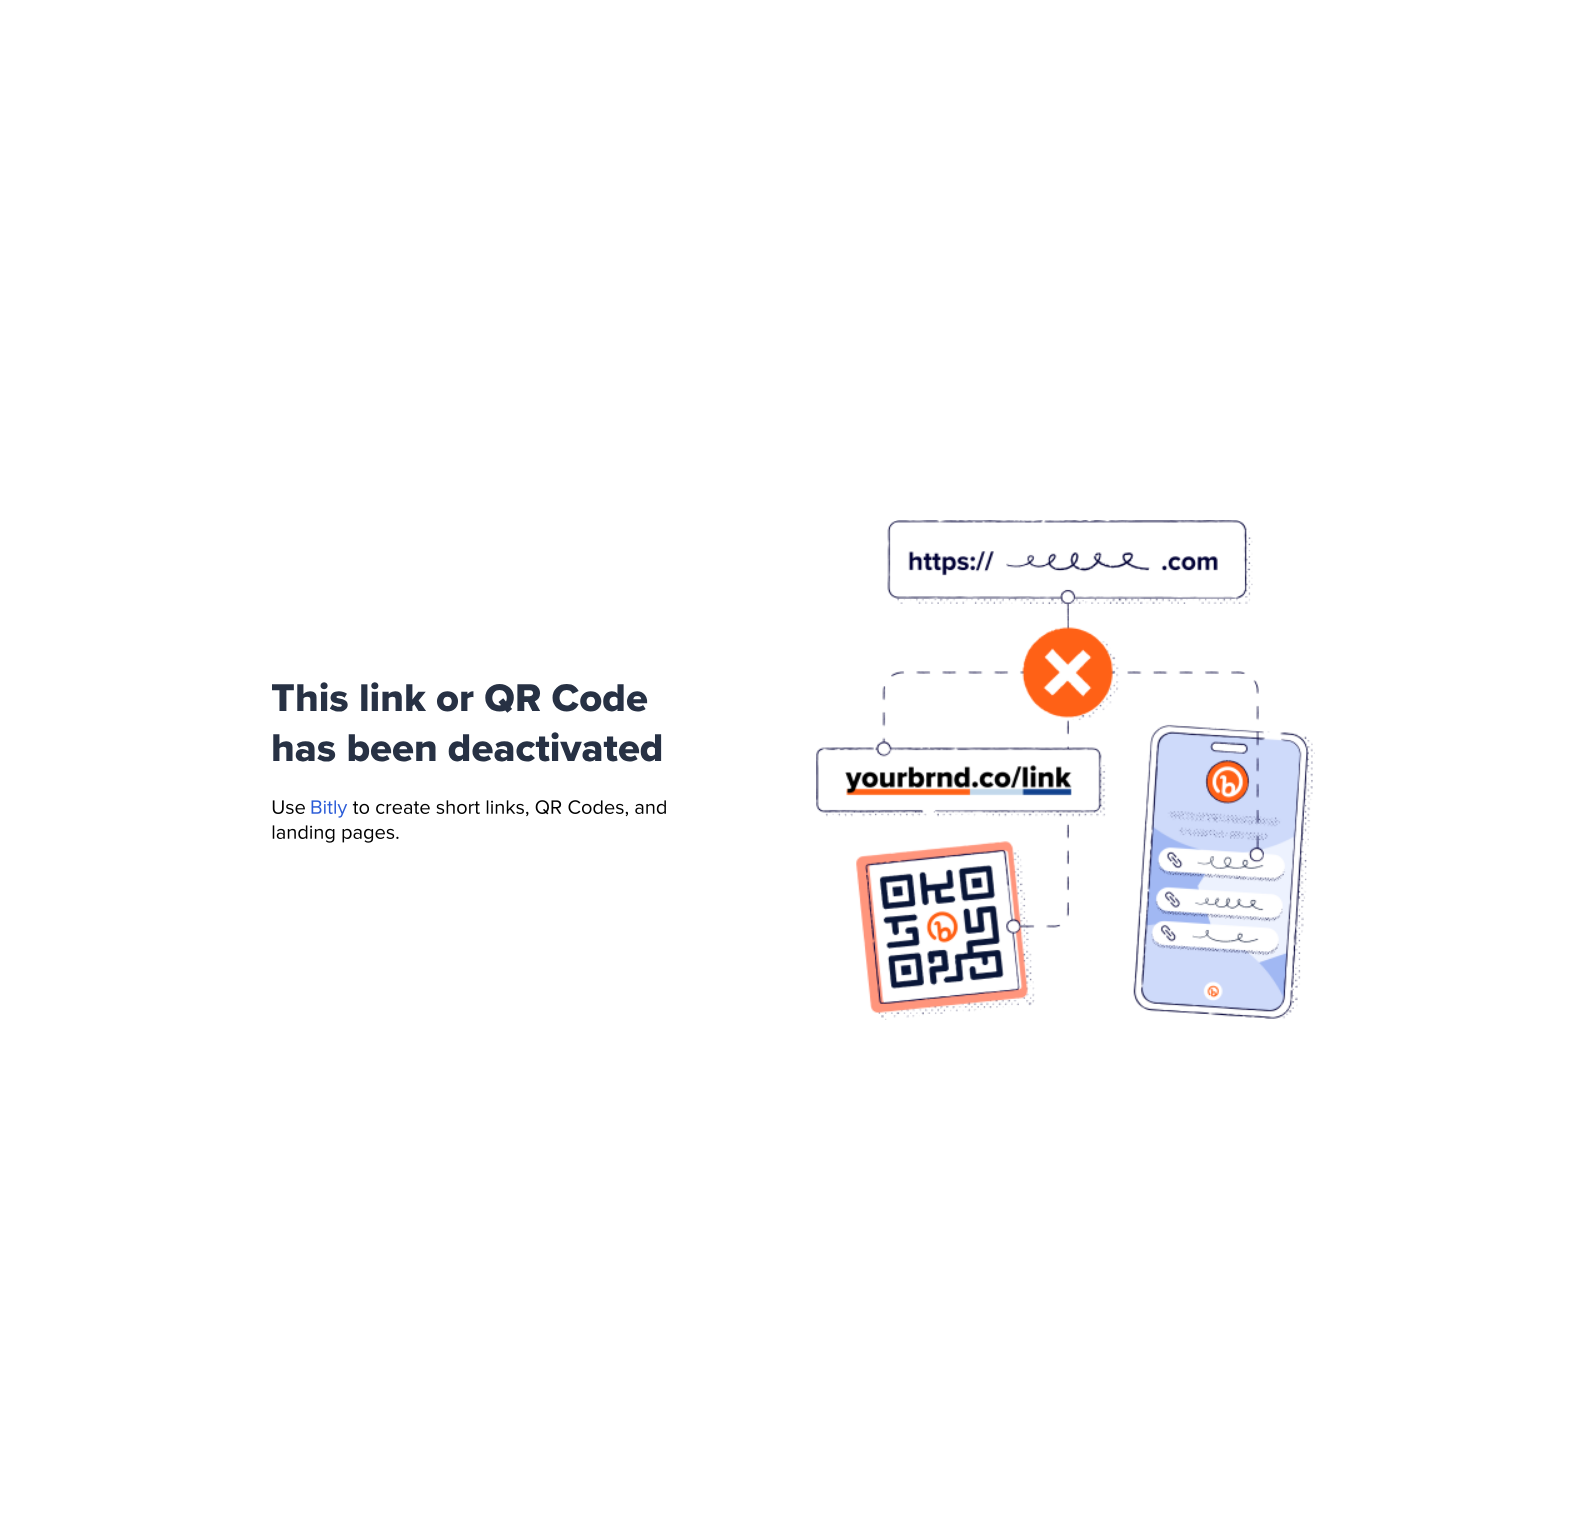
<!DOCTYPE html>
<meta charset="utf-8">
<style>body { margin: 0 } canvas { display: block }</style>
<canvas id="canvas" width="1586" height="1540"></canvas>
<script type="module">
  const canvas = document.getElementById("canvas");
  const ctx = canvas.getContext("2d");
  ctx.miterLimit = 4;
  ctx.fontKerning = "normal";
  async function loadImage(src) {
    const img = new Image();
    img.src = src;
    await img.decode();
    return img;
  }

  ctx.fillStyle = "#ffffff";
  ctx.fillRect(0, 0, 1586, 1540);
  ctx.font = "800 40px Proxima Nova";
  ctx.fillStyle = "#273144";
  ctx.fillText("This link or QR Code", 271, 711);
  ctx.fillText("has been deactivated", 271, 761);
  ctx.drawImage(await loadImage("img1.png"), 272, 800, 33, 14);
  ctx.drawImage(await loadImage("img2.png"), 311, 800, 37, 18);
  ctx.drawImage(await loadImage("img3.png"), 352, 800, 210, 17);
  ctx.drawImage(await loadImage("img4.png"), 568, 800, 98, 17);
  ctx.drawImage(await loadImage("img5.png"), 272, 825, 127, 18);
  ctx.drawImage(await loadImage("img6.png"), 816, 520, 499, 500);
</script>
